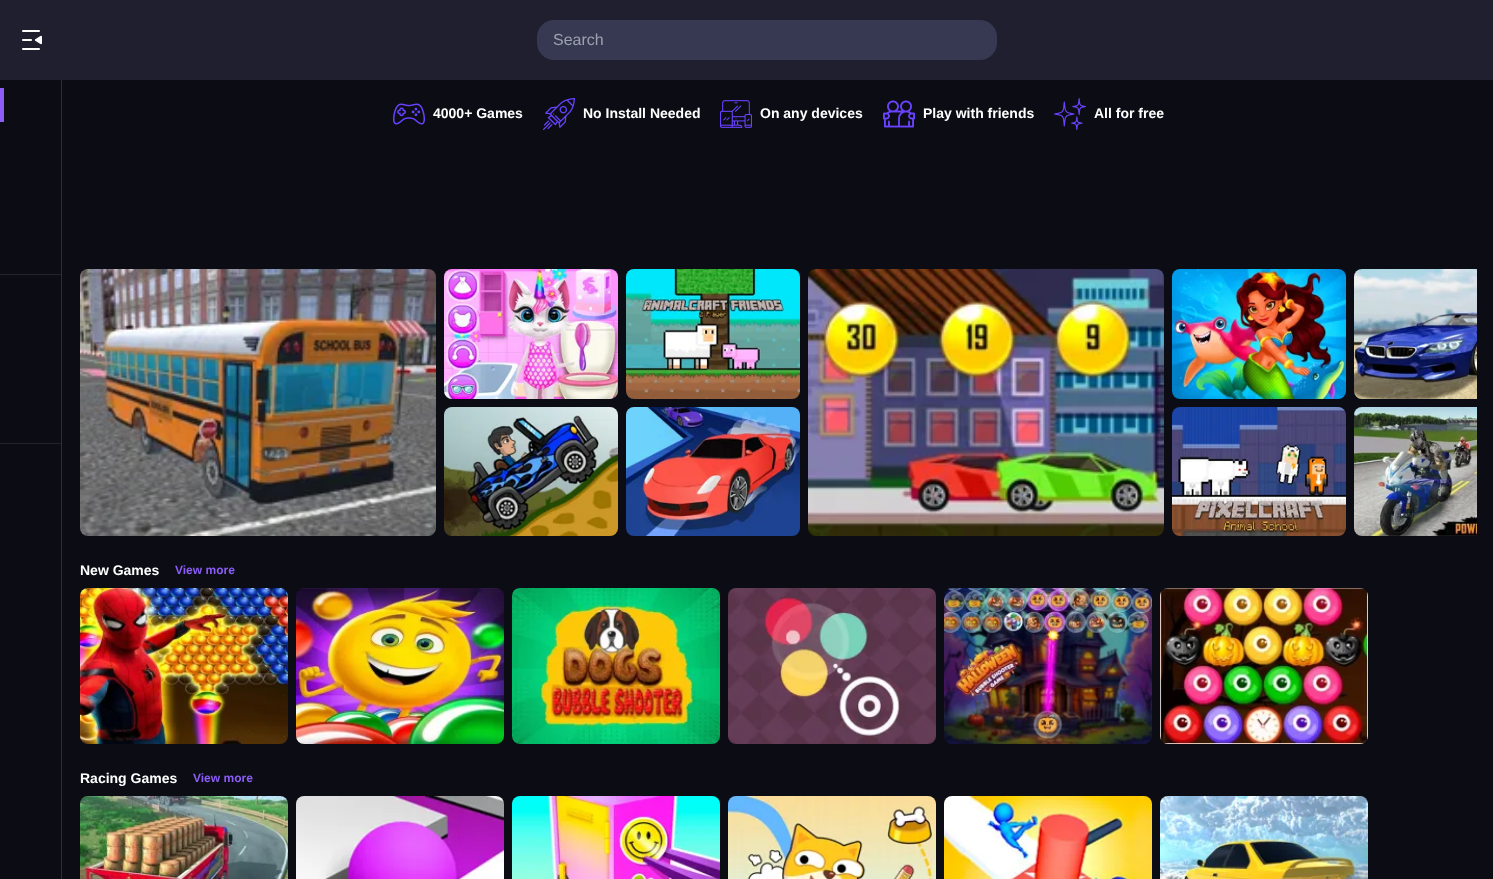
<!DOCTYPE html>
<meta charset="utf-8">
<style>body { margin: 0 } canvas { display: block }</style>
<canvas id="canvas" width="1493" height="879"></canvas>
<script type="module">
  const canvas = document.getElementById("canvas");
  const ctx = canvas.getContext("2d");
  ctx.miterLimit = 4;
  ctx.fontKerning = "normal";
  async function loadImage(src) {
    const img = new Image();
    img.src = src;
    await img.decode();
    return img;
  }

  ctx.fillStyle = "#0c0d14";
  ctx.fillRect(0, 0, 1493, 879);
  ctx.fillStyle = "#1f1f30";
  ctx.fillRect(0, 0, 1493, 80);
  ctx.drawImage(await loadImage("img1.png"), 22, 30, 20, 20);
  ctx.fillStyle = "#373952";
  ctx.beginPath();
  ctx.roundRect(537, 20, 460, 40, 17);
  ctx.fill();
  ctx.font = "16px Liberation Sans";
  ctx.fillStyle = "#9ca3af";
  ctx.fillText("Search", 553, 45);
  ctx.fillStyle = "#2d2e3b";
  ctx.fillRect(61, 80, 1, 799);
  ctx.fillStyle = "#8b5cf6";
  ctx.fillRect(0, 88, 4, 34);
  ctx.fillStyle = "#23242b";
  ctx.fillRect(0, 274, 61, 1);
  ctx.fillRect(0, 443, 61, 1);
  ctx.drawImage(await loadImage("img2.png"), 393, 103, 32, 22);
  ctx.font = "bold 14px Liberation Sans";
  ctx.fillStyle = "#ffffff";
  ctx.fillText("4000+ Games", 433, 118);
  ctx.drawImage(await loadImage("img3.png"), 543, 98, 32, 32);
  ctx.fillText("No Install Needed", 583, 118);
  ctx.drawImage(await loadImage("img4.png"), 720, 100, 32, 28);
  ctx.fillText("On any devices", 760, 118);
  ctx.drawImage(await loadImage("img5.png"), 883, 100, 32, 28);
  ctx.fillText("Play with friends", 923, 118);
  ctx.drawImage(await loadImage("img6.png"), 1054, 98, 32, 32);
  ctx.fillText("All for free", 1094, 118);
  ctx.drawImage(await loadImage("img7.png"), 80, 269, 356, 267);
  ctx.drawImage(await loadImage("img8.png"), 444, 269, 174, 130);
  ctx.drawImage(await loadImage("img9.png"), 626, 269, 174, 130);
  ctx.drawImage(await loadImage("img10.png"), 444, 407, 174, 129);
  ctx.drawImage(await loadImage("img11.png"), 626, 407, 174, 129);
  ctx.drawImage(await loadImage("img12.png"), 808, 269, 356, 267);
  ctx.drawImage(await loadImage("img13.png"), 1172, 269, 174, 130);
  ctx.drawImage(await loadImage("img14.png"), 1354, 269, 123, 130);
  ctx.drawImage(await loadImage("img15.png"), 1172, 407, 174, 129);
  ctx.drawImage(await loadImage("img16.png"), 1354, 407, 123, 129);
  ctx.fillText("New Games", 80, 575);
  ctx.font = "bold 12px Liberation Sans";
  ctx.fillStyle = "#8b5cf6";
  ctx.fillText("View more", 175, 574);
  ctx.drawImage(await loadImage("img17.png"), 80, 588, 208, 156);
  ctx.drawImage(await loadImage("img18.png"), 296, 588, 208, 156);
  ctx.drawImage(await loadImage("img19.png"), 512, 588, 208, 156);
  ctx.drawImage(await loadImage("img20.png"), 728, 588, 208, 156);
  ctx.drawImage(await loadImage("img21.png"), 944, 588, 208, 156);
  ctx.drawImage(await loadImage("img22.png"), 1160, 588, 208, 156);
  ctx.font = "bold 14px Liberation Sans";
  ctx.fillStyle = "#ffffff";
  ctx.fillText("Racing Games", 80, 783);
  ctx.font = "bold 12px Liberation Sans";
  ctx.fillStyle = "#8b5cf6";
  ctx.fillText("View more", 193, 782);
  ctx.drawImage(await loadImage("img23.png"), 80, 796, 208, 83);
  ctx.drawImage(await loadImage("img24.png"), 296, 796, 208, 83);
  ctx.drawImage(await loadImage("img25.png"), 512, 796, 208, 83);
  ctx.drawImage(await loadImage("img26.png"), 728, 796, 208, 83);
  ctx.drawImage(await loadImage("img27.png"), 944, 796, 208, 83);
  ctx.drawImage(await loadImage("img28.png"), 1160, 796, 208, 83);
</script>
